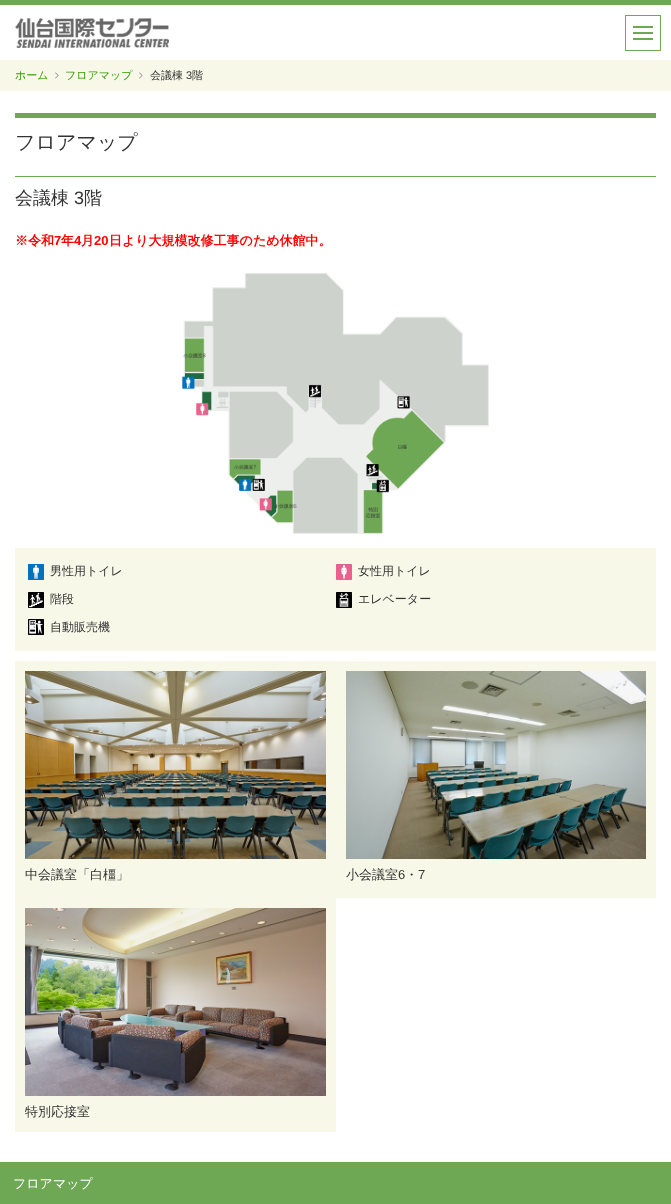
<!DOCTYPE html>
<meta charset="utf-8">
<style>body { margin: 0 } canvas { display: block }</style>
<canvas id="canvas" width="671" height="1204"></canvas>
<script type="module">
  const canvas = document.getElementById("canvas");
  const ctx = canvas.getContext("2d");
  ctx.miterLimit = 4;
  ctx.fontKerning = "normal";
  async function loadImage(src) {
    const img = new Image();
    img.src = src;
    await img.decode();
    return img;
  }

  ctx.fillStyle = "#ffffff";
  ctx.fillRect(0, 0, 671, 1204);
  ctx.fillStyle = "#6fa854";
  ctx.fillRect(0, 0, 671, 5);
  ctx.drawImage(await loadImage("img1.png"), 15, 18, 154, 30);
  ctx.strokeStyle = "#6fa854";
  ctx.strokeRect(625.5, 15.5, 35, 35);
  ctx.fillRect(633, 26, 20, 2);
  ctx.fillRect(633, 32, 20, 2);
  ctx.fillRect(633, 38, 20, 2);
  ctx.fillStyle = "#f8f8e9";
  ctx.fillRect(0, 60, 671, 31);
  ctx.font = "500 11px WenQuanYi Zen Hei";
  ctx.fillStyle = "#339900";
  ctx.fillText("ホーム", 15, 79);
  ctx.drawImage(await loadImage("img2.png"), 55, 72, 4, 7);
  ctx.fillText("フロアマップ", 65, 79);
  ctx.drawImage(await loadImage("img2.png"), 139, 72, 4, 7);
  ctx.fillStyle = "#333333";
  ctx.fillText("会議棟", 150, 79);
  ctx.font = "11px Liberation Sans";
  ctx.fillText("3", 186, 79);
  ctx.font = "500 11px WenQuanYi Zen Hei";
  ctx.fillText("階", 192, 79);
  ctx.fillStyle = "#6fa854";
  ctx.fillRect(15, 113, 641, 5);
  ctx.font = "500 20px WenQuanYi Zen Hei";
  ctx.fillStyle = "#333333";
  ctx.fillText("フロアマップ", 15, 149);
  ctx.fillStyle = "#6fa854";
  ctx.fillRect(15, 176, 641, 1);
  ctx.font = "500 18px WenQuanYi Zen Hei";
  ctx.fillStyle = "#333333";
  ctx.fillText("会議棟", 15, 204);
  ctx.font = "18px Liberation Sans";
  ctx.fillText("3", 74, 204);
  ctx.font = "500 18px WenQuanYi Zen Hei";
  ctx.fillText("階", 84, 204);
  ctx.font = "bold 13px WenQuanYi Zen Hei";
  ctx.fillStyle = "#ff0000";
  ctx.fillText("※令和", 15, 245);
  ctx.font = "bold 13px Liberation Sans";
  ctx.fillText("7", 54, 245);
  ctx.font = "bold 13px WenQuanYi Zen Hei";
  ctx.fillText("年", 61, 245);
  ctx.font = "bold 13px Liberation Sans";
  ctx.fillText("4", 74, 245);
  ctx.font = "bold 13px WenQuanYi Zen Hei";
  ctx.fillText("月", 81, 245);
  ctx.font = "bold 13px Liberation Sans";
  ctx.fillText("20", 94, 245);
  ctx.font = "bold 13px WenQuanYi Zen Hei";
  ctx.fillText("日より大規模改修工事のため休館中。", 109, 245);
  ctx.drawImage(await loadImage("img3.png"), 182, 273, 307, 261);
  ctx.fillStyle = "#f8f8e9";
  ctx.fillRect(15, 548, 641, 103);
  ctx.drawImage(await loadImage("img4.png"), 28, 564, 16, 16);
  ctx.font = "500 12px WenQuanYi Zen Hei";
  ctx.fillStyle = "#333333";
  ctx.fillText("男性用トイレ", 50, 575);
  ctx.drawImage(await loadImage("img5.png"), 336, 564, 16, 16);
  ctx.fillText("女性用トイレ", 358, 575);
  ctx.drawImage(await loadImage("img6.png"), 28, 592, 16, 16);
  ctx.fillText("階段", 50, 603);
  ctx.drawImage(await loadImage("img7.png"), 336, 592, 16, 16);
  ctx.fillText("エレベーター", 358, 603);
  ctx.drawImage(await loadImage("img8.png"), 28, 619, 16, 16);
  ctx.fillText("自動販売機", 50, 631);
  ctx.fillStyle = "#f8f8e9";
  ctx.fillRect(15, 661, 641, 237);
  ctx.drawImage(await loadImage("img9.png"), 25, 671, 301, 188);
  ctx.font = "500 13px WenQuanYi Zen Hei";
  ctx.fillStyle = "#333333";
  ctx.fillText("中会議室「白橿」", 25, 879);
  ctx.drawImage(await loadImage("img10.png"), 346, 671, 300, 188);
  ctx.fillText("小会議室", 346, 879);
  ctx.font = "13px Liberation Sans";
  ctx.fillText("6", 398, 879);
  ctx.font = "500 13px WenQuanYi Zen Hei";
  ctx.fillText("・", 405, 879);
  ctx.font = "13px Liberation Sans";
  ctx.fillText("7", 418, 879);
  ctx.fillStyle = "#f8f8e9";
  ctx.fillRect(15, 898, 321, 234);
  ctx.drawImage(await loadImage("img11.png"), 25, 908, 301, 188);
  ctx.font = "500 13px WenQuanYi Zen Hei";
  ctx.fillStyle = "#333333";
  ctx.fillText("特別応接室", 25, 1116);
  ctx.fillStyle = "#6fa854";
  ctx.fillRect(0, 1162, 671, 42);
  ctx.fillStyle = "#ffffff";
  ctx.fillText("フロアマップ", 13, 1188);
</script>
